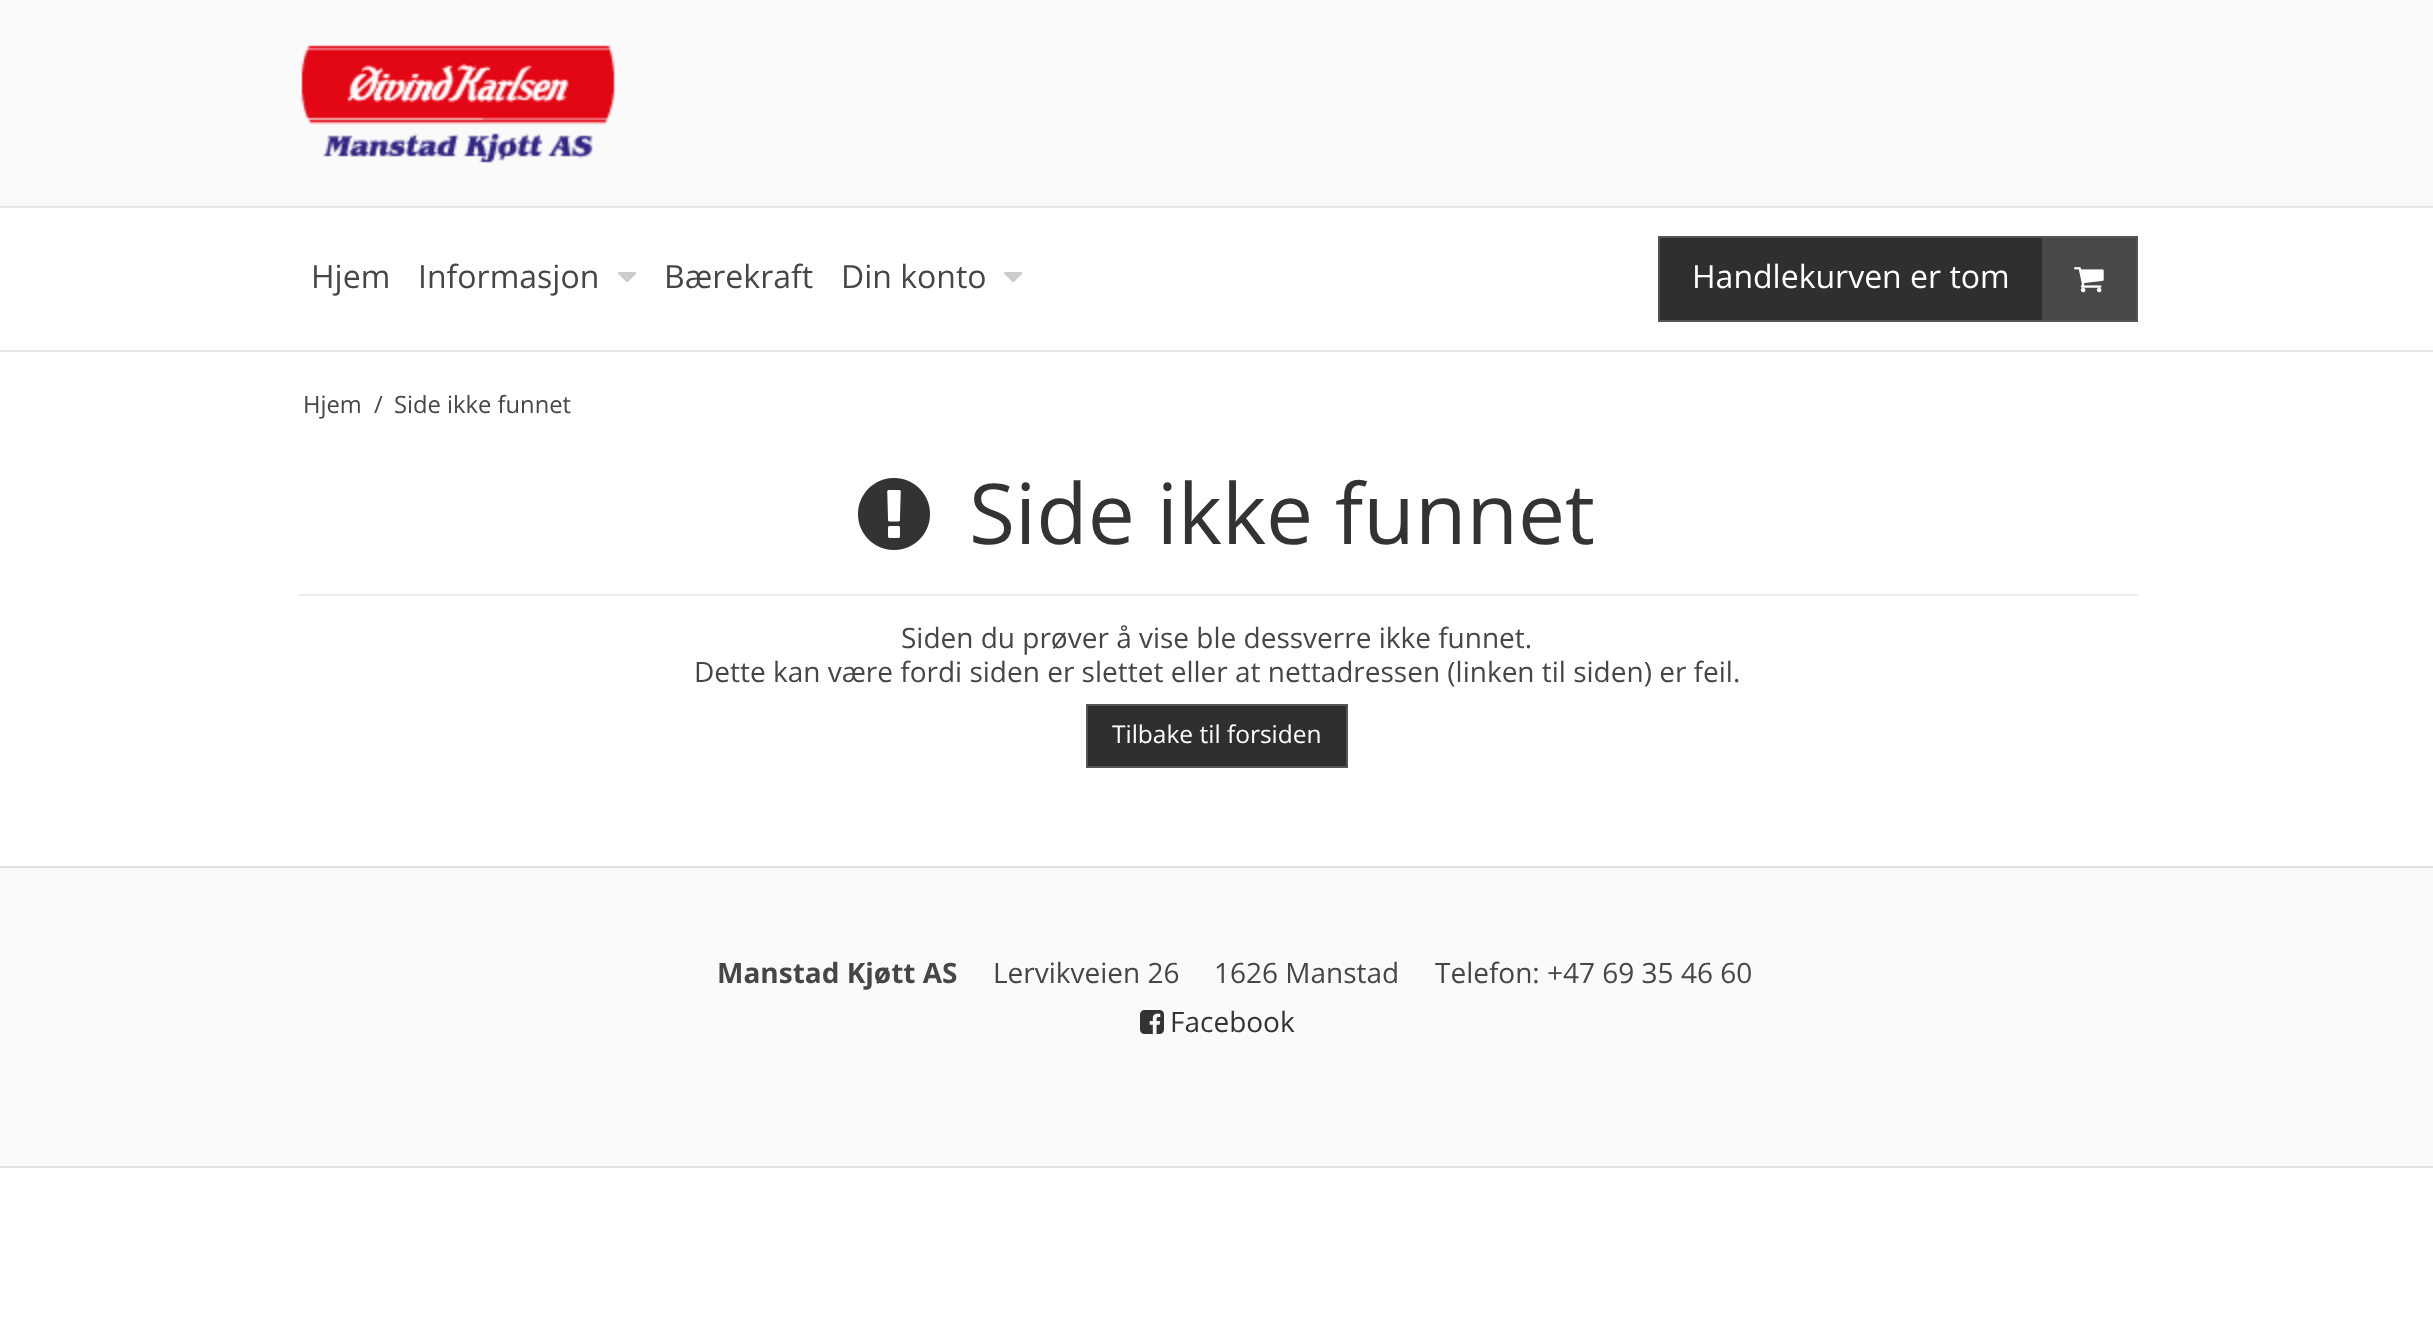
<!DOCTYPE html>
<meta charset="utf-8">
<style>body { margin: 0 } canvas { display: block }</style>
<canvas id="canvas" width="2433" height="1343"></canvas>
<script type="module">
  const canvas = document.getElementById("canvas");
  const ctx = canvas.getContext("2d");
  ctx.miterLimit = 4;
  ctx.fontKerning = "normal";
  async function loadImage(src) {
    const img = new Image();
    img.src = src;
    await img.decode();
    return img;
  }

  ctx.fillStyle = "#ffffff";
  ctx.fillRect(0, 0, 2433, 1343);
  ctx.fillStyle = "#fafafa";
  ctx.fillRect(0, 0, 2433, 206);
  ctx.drawImage(await loadImage("img1.png"), 301, 45, 314, 118);
  ctx.fillStyle = "#e6e6e6";
  ctx.fillRect(0, 206, 2433, 2);
  ctx.fillRect(0, 350, 2433, 2);
  ctx.font = "32px Open Sans";
  ctx.fillStyle = "#464646";
  ctx.fillText("Hjem", 311, 288);
  ctx.fillText("Informasjon", 418, 288);
  ctx.drawImage(await loadImage("img2.png"), 618, 272, 19, 11);
  ctx.fillText("Bærekraft", 664, 288);
  ctx.fillText("Din konto", 841, 288);
  ctx.drawImage(await loadImage("img2.png"), 1004, 272, 19, 11);
  ctx.fillStyle = "#2f2f2f";
  ctx.fillRect(1660, 238, 382, 82);
  ctx.strokeStyle = "#555555";
  ctx.lineWidth = 2;
  ctx.strokeRect(1659, 237, 478, 84);
  ctx.fillStyle = "#ffffff";
  ctx.fillText("Handlekurven er tom", 1692, 288);
  ctx.fillStyle = "#494949";
  ctx.fillRect(2042, 238, 94, 82);
  ctx.drawImage(await loadImage("img3.png"), 2074, 267, 30, 26);
  ctx.font = "23.75px Open Sans";
  ctx.fillStyle = "#464646";
  ctx.fillText("Hjem", 303, 413);
  ctx.fillText("/", 374, 413);
  ctx.fillText("Side ikke funnet", 394, 413);
  ctx.fillStyle = "#eeeeee";
  ctx.fillRect(298, 594, 1840, 2);
  ctx.drawImage(await loadImage("img4.png"), 858, 478, 72, 72);
  ctx.font = "84px Open Sans";
  ctx.fillStyle = "#333333";
  ctx.fillText("Side ikke funnet", 969, 544);
  ctx.font = "28px Open Sans";
  ctx.fillStyle = "#464646";
  ctx.fillText("Siden du prøver å vise ble dessverre ikke funnet.", 901, 648);
  ctx.fillText("Dette kan være fordi siden er slettet eller at nettadressen (linken til siden) er feil.", 694, 682);
  ctx.fillStyle = "#2f2f2f";
  ctx.beginPath();
  ctx.rect(1087, 705, 260, 62);
  ctx.fill();
  ctx.stroke();
  ctx.font = "24.5px Open Sans";
  ctx.fillStyle = "#ffffff";
  ctx.fillText("Tilbake til forsiden", 1112, 743);
  ctx.fillStyle = "#fafafa";
  ctx.fillRect(0, 868, 2433, 298);
  ctx.fillStyle = "#e1e1e1";
  ctx.fillRect(0, 866, 2433, 2);
  ctx.fillRect(0, 1166, 2433, 2);
  ctx.font = "bold 28px Open Sans";
  ctx.fillStyle = "#464646";
  ctx.fillText("Manstad Kjøtt AS", 717, 983);
  ctx.font = "28px Open Sans";
  ctx.fillText("Lervikveien 26", 993, 983);
  ctx.fillText("1626 Manstad", 1214, 983);
  ctx.fillText("Telefon: +47 69 35 46 60", 1435, 983);
  ctx.drawImage(await loadImage("img5.png"), 1140, 1010, 24, 24);
  ctx.fillStyle = "#333333";
  ctx.fillText("Facebook", 1170, 1032);
</script>
